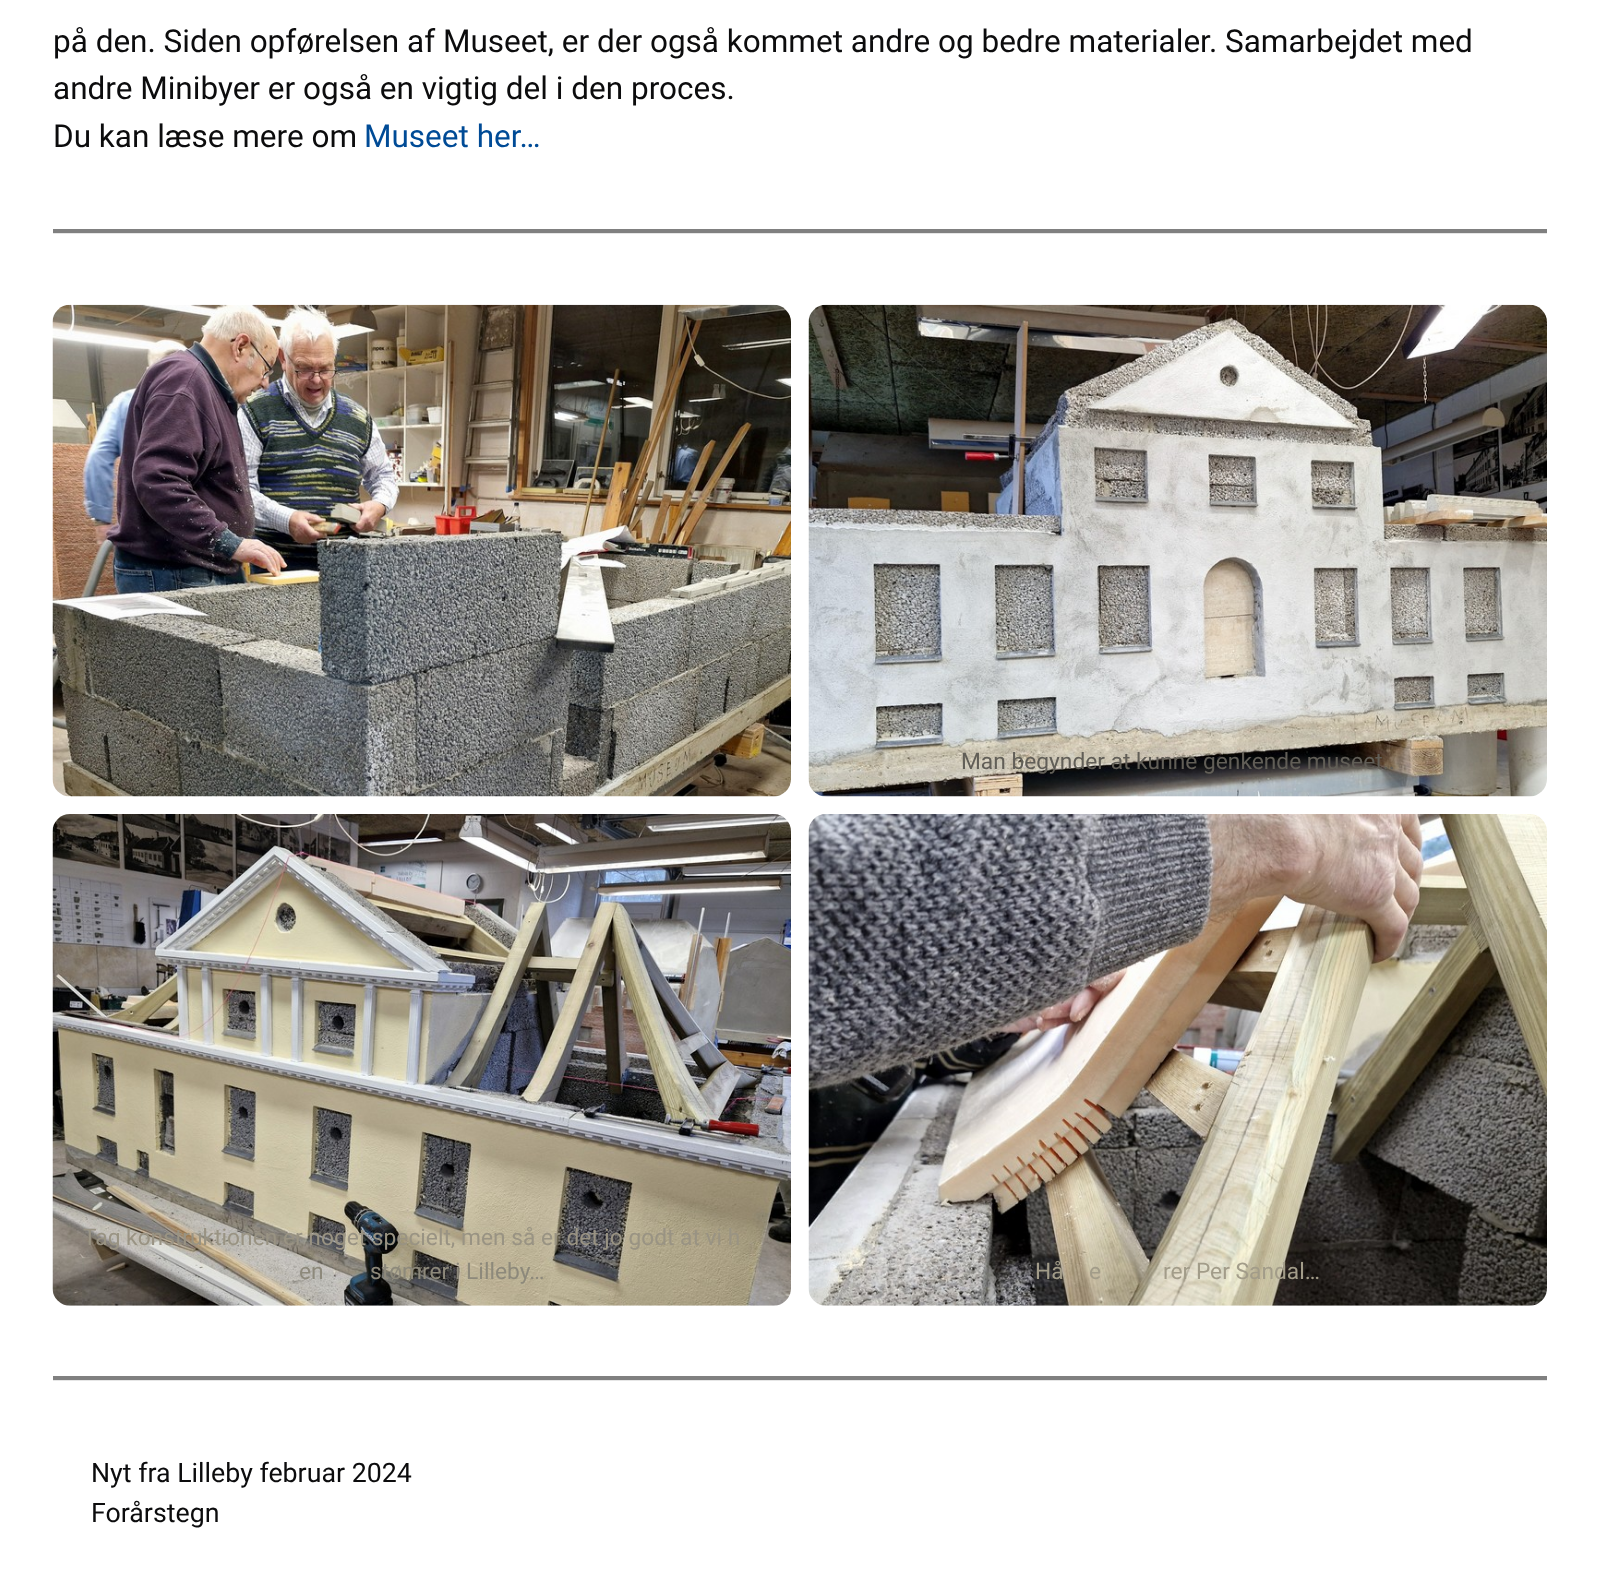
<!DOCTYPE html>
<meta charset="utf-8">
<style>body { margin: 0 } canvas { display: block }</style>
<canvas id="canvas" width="1598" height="1574"></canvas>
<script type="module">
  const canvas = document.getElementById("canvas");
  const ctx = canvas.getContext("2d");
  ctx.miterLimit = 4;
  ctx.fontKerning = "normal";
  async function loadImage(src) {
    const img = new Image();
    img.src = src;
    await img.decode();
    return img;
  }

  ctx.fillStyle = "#ffffff";
  ctx.fillRect(0, 0, 1598, 1574);
  ctx.font = "31.5px Roboto";
  ctx.fillStyle = "#0c0c0d";
  ctx.fillText("på den. Siden opførelsen af Museet, er der også kommet andre og bedre materialer. Samarbejdet med", 53, 52);
  ctx.fillText("andre Minibyer er også en vigtig del i den proces.", 53, 99);
  ctx.fillText("Du kan læse mere om", 53, 147);
  ctx.fillStyle = "#004b96";
  ctx.fillText("Museet her…", 364, 147);
  ctx.fillStyle = "#e6e6e6";
  ctx.fillRect(53, 233, 1494, 1);
  ctx.fillStyle = "#808080";
  ctx.fillRect(53, 229, 1494, 4);
  ctx.drawImage(await loadImage("img1.png"), 52, 304, 739, 493);
  ctx.drawImage(await loadImage("img2.png"), 808, 304, 739, 493);
  ctx.font = "22.75px Roboto";
  ctx.fillStyle = "#615e57";
  ctx.fillText("Man begynder at kunne genkende museet..", 961, 769);
  ctx.drawImage(await loadImage("img3.png"), 52, 814, 739, 492);
  ctx.fillStyle = "#999383";
  ctx.fillText("Tag konstruktionen er noget specielt, men så er det jo godt at vi h", 83, 1245);
  ctx.fillStyle = "#8d897b";
  ctx.fillText("en", 299, 1279);
  ctx.fillText("stømrer i Lilleby…", 370, 1279);
  ctx.drawImage(await loadImage("img4.png"), 808, 814, 739, 492);
  ctx.fillStyle = "#a29c89";
  ctx.fillText("Hå", 1035, 1279);
  ctx.fillText("e", 1089, 1279);
  ctx.fillText("rer Per Sandal…", 1163, 1279);
  ctx.fillStyle = "#e6e6e6";
  ctx.fillRect(53, 1380, 1494, 1);
  ctx.fillStyle = "#808080";
  ctx.fillRect(53, 1376, 1494, 4);
  ctx.font = "26.75px Roboto";
  ctx.fillStyle = "#0c0c0d";
  ctx.fillText("Nyt fra Lilleby februar 2024", 91, 1482);
  ctx.fillText("Forårstegn", 91, 1522);
</script>
